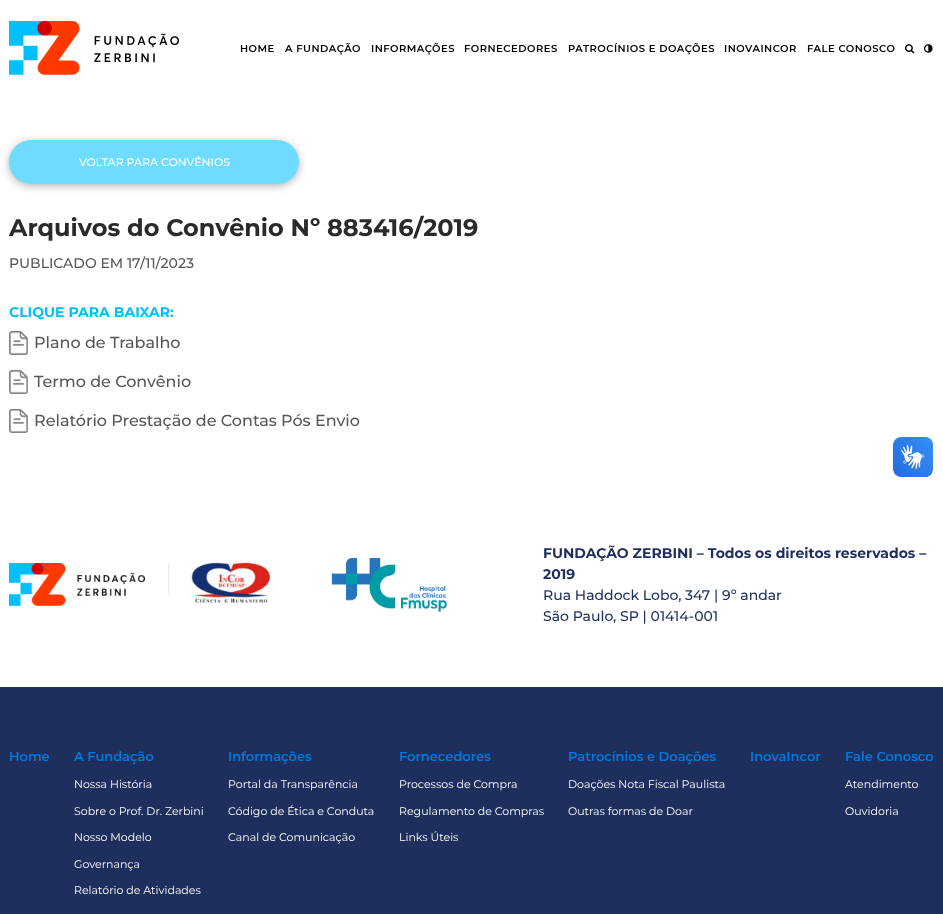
<!DOCTYPE html>
<meta charset="utf-8">
<style>body { margin: 0 } canvas { display: block }</style>
<canvas id="canvas" width="943" height="914"></canvas>
<script type="module">
  const canvas = document.getElementById("canvas");
  const ctx = canvas.getContext("2d");
  ctx.miterLimit = 4;
  ctx.fontKerning = "normal";
  async function loadImage(src) {
    const img = new Image();
    img.src = src;
    await img.decode();
    return img;
  }

  ctx.fillStyle = "#ffffff";
  ctx.fillRect(0, 0, 943, 914);
  ctx.drawImage(await loadImage("img1.png"), 9, 21, 170, 54);
  ctx.letterSpacing = "0.5px";
  ctx.font = "600 10px Montserrat";
  ctx.fillStyle = "#000000";
  ctx.fillText("HOME", 240, 52);
  ctx.fillText("A FUNDAÇÃO", 285, 52);
  ctx.fillText("INFORMAÇÕES", 371, 52);
  ctx.fillText("FORNECEDORES", 464, 52);
  ctx.fillText("PATROCÍNIOS E DOAÇÕES", 568, 52);
  ctx.fillText("INOVAINCOR", 724, 52);
  ctx.fillText("FALE CONOSCO", 807, 52);
  ctx.drawImage(await loadImage("img2.png"), 905, 44, 10, 10);
  ctx.drawImage(await loadImage("img3.png"), 924, 44, 9, 9);
  ctx.fillStyle = "rgba(0, 0, 0, 0.3)";
  ctx.filter = "blur(4px)";
  ctx.beginPath();
  ctx.roundRect(9, 142, 290, 44, 22);
  ctx.fill();
  ctx.filter = "none";
  ctx.fillStyle = "#6fdbff";
  ctx.beginPath();
  ctx.roundRect(9, 140, 290, 44, 22);
  ctx.fill();
  ctx.letterSpacing = "0px";
  ctx.font = "500 11px Montserrat";
  ctx.fillStyle = "#ffffff";
  ctx.fillText("VOLTAR PARA CONVÊNIOS", 79, 166);
  ctx.font = "bold 24px Montserrat";
  ctx.fillStyle = "#2a2a2a";
  ctx.fillText("Arquivos do Convênio Nº 883416/2019", 9, 236);
  ctx.font = "500 14px Montserrat";
  ctx.fillStyle = "#575757";
  ctx.fillText("PUBLICADO EM 17/11/2023", 9, 268);
  ctx.font = "bold 14px Montserrat";
  ctx.fillStyle = "#00bfff";
  ctx.fillText("CLIQUE PARA BAIXAR:", 9, 317);
  ctx.drawImage(await loadImage("img4.png"), 9, 331, 19, 24);
  ctx.font = "500 16px Montserrat";
  ctx.fillStyle = "#575757";
  ctx.fillText("Plano de Trabalho", 34, 348);
  ctx.drawImage(await loadImage("img4.png"), 9, 370, 19, 24);
  ctx.fillText("Termo de Convênio", 34, 387);
  ctx.drawImage(await loadImage("img4.png"), 9, 409, 19, 24);
  ctx.fillText("Relatório Prestação de Contas Pós Envio", 34, 426);
  ctx.drawImage(await loadImage("img5.png"), 893, 437, 40, 40);
  ctx.drawImage(await loadImage("img6.png"), 893, 437, 40, 40);
  ctx.drawImage(await loadImage("img7.png"), 9, 563, 136, 43);
  ctx.drawImage(await loadImage("img8.png"), 168, 560, 103, 44);
  ctx.drawImage(await loadImage("img9.png"), 331, 557, 116, 55);
  ctx.font = "bold 14px Montserrat";
  ctx.fillStyle = "#1e2f5d";
  ctx.fillText("FUNDAÇÃO ZERBINI – Todos os direitos reservados –", 543, 558);
  ctx.fillText("2019", 543, 579);
  ctx.font = "500 14px Montserrat";
  ctx.fillText("Rua Haddock Lobo, 347 | 9º andar", 543, 600);
  ctx.fillText("São Paulo, SP | 01414-001", 543, 621);
  ctx.fillRect(0, 687, 943, 227);
  ctx.font = "600 13px Montserrat";
  ctx.fillStyle = "#007adf";
  ctx.fillText("Home", 9, 761);
  ctx.fillText("A Fundação", 74, 761);
  ctx.font = "11px Montserrat";
  ctx.fillStyle = "#ffffff";
  ctx.fillText("Nossa História", 74, 788);
  ctx.fillText("Sobre o Prof. Dr. Zerbini", 74, 815);
  ctx.fillText("Nosso Modelo", 74, 841);
  ctx.fillText("Governança", 74, 868);
  ctx.fillText("Relatório de Atividades", 74, 894);
  ctx.font = "600 13px Montserrat";
  ctx.fillStyle = "#007adf";
  ctx.fillText("Informações", 228, 761);
  ctx.font = "11px Montserrat";
  ctx.fillStyle = "#ffffff";
  ctx.fillText("Portal da Transparência", 228, 788);
  ctx.fillText("Código de Ética e Conduta", 228, 815);
  ctx.fillText("Canal de Comunicação", 228, 841);
  ctx.font = "600 13px Montserrat";
  ctx.fillStyle = "#007adf";
  ctx.fillText("Fornecedores", 399, 761);
  ctx.font = "11px Montserrat";
  ctx.fillStyle = "#ffffff";
  ctx.fillText("Processos de Compra", 399, 788);
  ctx.fillText("Regulamento de Compras", 399, 815);
  ctx.fillText("Links Úteis", 399, 841);
  ctx.font = "600 13px Montserrat";
  ctx.fillStyle = "#007adf";
  ctx.fillText("Patrocínios e Doações", 568, 761);
  ctx.font = "11px Montserrat";
  ctx.fillStyle = "#ffffff";
  ctx.fillText("Doações Nota Fiscal Paulista", 568, 788);
  ctx.fillText("Outras formas de Doar", 568, 815);
  ctx.font = "600 13px Montserrat";
  ctx.fillStyle = "#007adf";
  ctx.fillText("InovaIncor", 750, 761);
  ctx.fillText("Fale Conosco", 845, 761);
  ctx.font = "11px Montserrat";
  ctx.fillStyle = "#ffffff";
  ctx.fillText("Atendimento", 845, 788);
  ctx.fillText("Ouvidoria", 845, 815);
</script>
